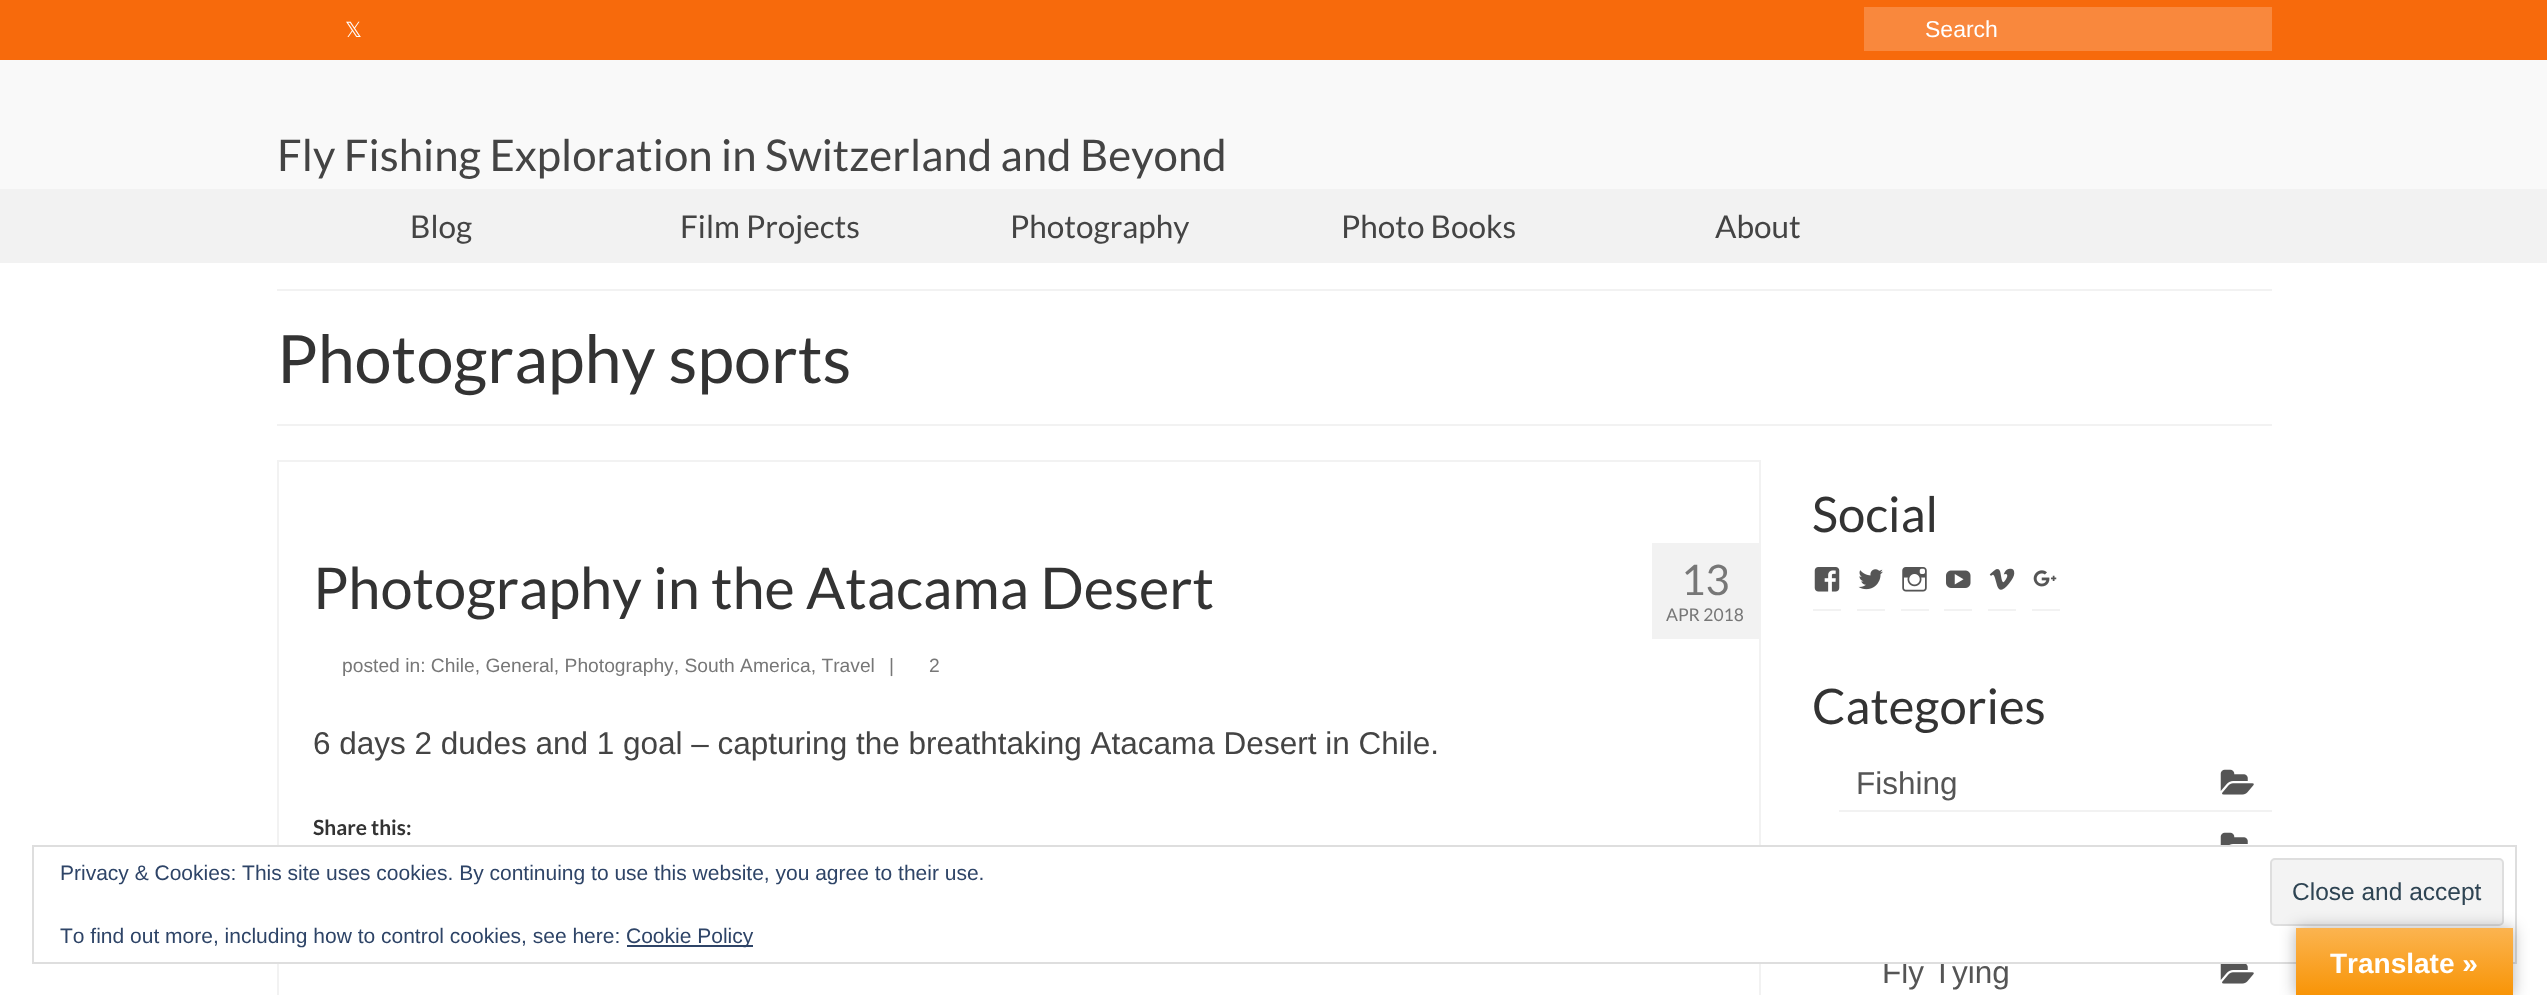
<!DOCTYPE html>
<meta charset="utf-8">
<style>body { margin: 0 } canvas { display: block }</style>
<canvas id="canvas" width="2547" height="995"></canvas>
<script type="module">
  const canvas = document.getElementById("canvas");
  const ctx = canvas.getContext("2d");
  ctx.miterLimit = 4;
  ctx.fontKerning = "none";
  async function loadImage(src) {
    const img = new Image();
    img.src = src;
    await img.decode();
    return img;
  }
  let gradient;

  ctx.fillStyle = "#ffffff";
  ctx.fillRect(0, 0, 2547, 995);
  ctx.fillStyle = "#f9f9f9";
  ctx.fillRect(0, 60, 2547, 129);
  ctx.fillStyle = "#f76a0c";
  ctx.fillRect(0, 0, 2547, 60);
  ctx.font = "21px DejaVu Sans";
  ctx.fillStyle = "#ffffff";
  ctx.fillText("𝕏", 345, 37);
  ctx.fillStyle = "#f9883d";
  ctx.fillRect(1864, 7, 408, 44);
  ctx.font = "23px Liberation Sans";
  ctx.fillStyle = "#ffffff";
  ctx.fillText("Search", 1925, 37);
  ctx.font = "43.75px Lato";
  ctx.fillStyle = "#444444";
  ctx.fillText("Fly Fishing Exploration in Switzerland and Beyond", 277, 171);
  ctx.fillStyle = "#f2f2f2";
  ctx.fillRect(0, 189, 2547, 74);
  ctx.font = "31.5px Lato";
  ctx.fillStyle = "#444444";
  ctx.fillText("Blog", 410, 238);
  ctx.fillText("Film Projects", 680, 238);
  ctx.fillText("Photography", 1010, 238);
  ctx.fillText("Photo Books", 1341, 238);
  ctx.fillText("About", 1715, 238);
  ctx.fillStyle = "#f2f2f2";
  ctx.fillRect(277, 289, 1995, 2);
  ctx.fillRect(277, 424, 1995, 2);
  ctx.font = "66.5px Lato";
  ctx.fillStyle = "#333333";
  ctx.fillText("Photography sports", 277, 383);
  ctx.strokeStyle = "#f2f2f2";
  ctx.lineWidth = 2;
  ctx.strokeRect(278, 461, 1482, 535);
  ctx.font = "57.75px Lato";
  ctx.fillText("Photography in the Atacama Desert", 313, 609);
  ctx.font = "19.25px Liberation Sans";
  ctx.fillStyle = "#777777";
  ctx.fillText("posted in: Chile, General, Photography, South America, Travel", 342, 672);
  ctx.fillText("|", 889, 672);
  ctx.fillText("2", 929, 672);
  ctx.fillStyle = "#f2f2f2";
  ctx.fillRect(1652, 543, 107, 96);
  ctx.font = "42px Lato";
  ctx.fillStyle = "#777777";
  ctx.fillText("13", 1681, 595);
  ctx.font = "17.5px Lato";
  ctx.fillText("APR 2018", 1666, 621);
  ctx.font = "31.5px Liberation Sans";
  ctx.fillStyle = "#444444";
  ctx.fillText("6 days 2 dudes and 1 goal – capturing the breathtaking Atacama Desert in Chile.", 313, 754);
  ctx.font = "bold 21px Lato";
  ctx.fillStyle = "#333333";
  ctx.fillText("Share this:", 313, 835);
  ctx.font = "49px Lato";
  ctx.fillText("Social", 1812, 532);
  ctx.fillStyle = "#f2f2f2";
  ctx.fillRect(1813, 609, 28, 2);
  ctx.drawImage(await loadImage("img1.png"), 1814, 567, 26, 25);
  ctx.fillRect(1857, 609, 28, 2);
  ctx.drawImage(await loadImage("img2.png"), 1858, 569, 25, 21);
  ctx.fillRect(1901, 609, 28, 2);
  ctx.drawImage(await loadImage("img3.png"), 1902, 567, 25, 25);
  ctx.fillRect(1944, 609, 28, 2);
  ctx.drawImage(await loadImage("img4.png"), 1946, 570, 25, 18);
  ctx.fillRect(1988, 609, 28, 2);
  ctx.drawImage(await loadImage("img5.png"), 1989, 568, 26, 22);
  ctx.fillRect(2032, 609, 28, 2);
  ctx.drawImage(await loadImage("img6.png"), 2033, 570, 24, 17);
  ctx.fillStyle = "#333333";
  ctx.fillText("Categories", 1812, 724);
  ctx.fillStyle = "#f2f2f2";
  ctx.fillRect(1839, 810, 433, 2);
  ctx.font = "31.5px Liberation Sans";
  ctx.fillStyle = "#555555";
  ctx.fillText("Fishing", 1856, 794);
  ctx.drawImage(await loadImage("img7.png"), 2220, 769, 34, 26);
  ctx.drawImage(await loadImage("img8.png"), 2220, 832, 28, 13);
  ctx.fillText("Fly Tying", 1882, 983);
  ctx.drawImage(await loadImage("img9.png"), 2220, 964, 34, 20);
  ctx.fillStyle = "#ffffff";
  ctx.fillRect(277, 847, 1696, 115);
  ctx.strokeStyle = "#dedede";
  ctx.strokeRect(33, 846, 2483, 117);
  ctx.font = "21px Liberation Sans";
  ctx.fillStyle = "#2e4467";
  ctx.fillText("Privacy & Cookies: This site uses cookies. By continuing to use this website, you agree to their use.", 60, 880);
  ctx.fillStyle = "#f3f3f3";
  ctx.beginPath();
  ctx.roundRect(2271, 859, 232, 66, 4);
  ctx.fill();
  ctx.stroke();
  ctx.font = "24.5px Liberation Sans";
  ctx.fillStyle = "#2e4453";
  ctx.fillText("Close and accept", 2292, 900);
  ctx.font = "21px Liberation Sans";
  ctx.fillStyle = "#2e4467";
  ctx.fillText("To find out more, including how to control cookies, see here:", 60, 943);
  ctx.fillRect(627, 945, 126, 2);
  ctx.fillText("Cookie Policy", 626, 943);
  ctx.fillStyle = "rgba(0, 0, 0, 0.3)";
  ctx.filter = "blur(8px)";
  ctx.beginPath();
  ctx.rect(2296, 928, 217, 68);
  ctx.fill();
  ctx.filter = "none";
  gradient = ctx.createLinearGradient(2405, 928, 2405, 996);
  gradient.addColorStop(0, "#fbb450");
  gradient.addColorStop(1, "#f89406");
  ctx.fillStyle = gradient;
  ctx.fillRect(2296, 928, 217, 67);
  ctx.font = "bold 28px Liberation Sans";
  ctx.fillStyle = "#ffffff";
  ctx.fillText("Translate »", 2330, 973);
</script>
